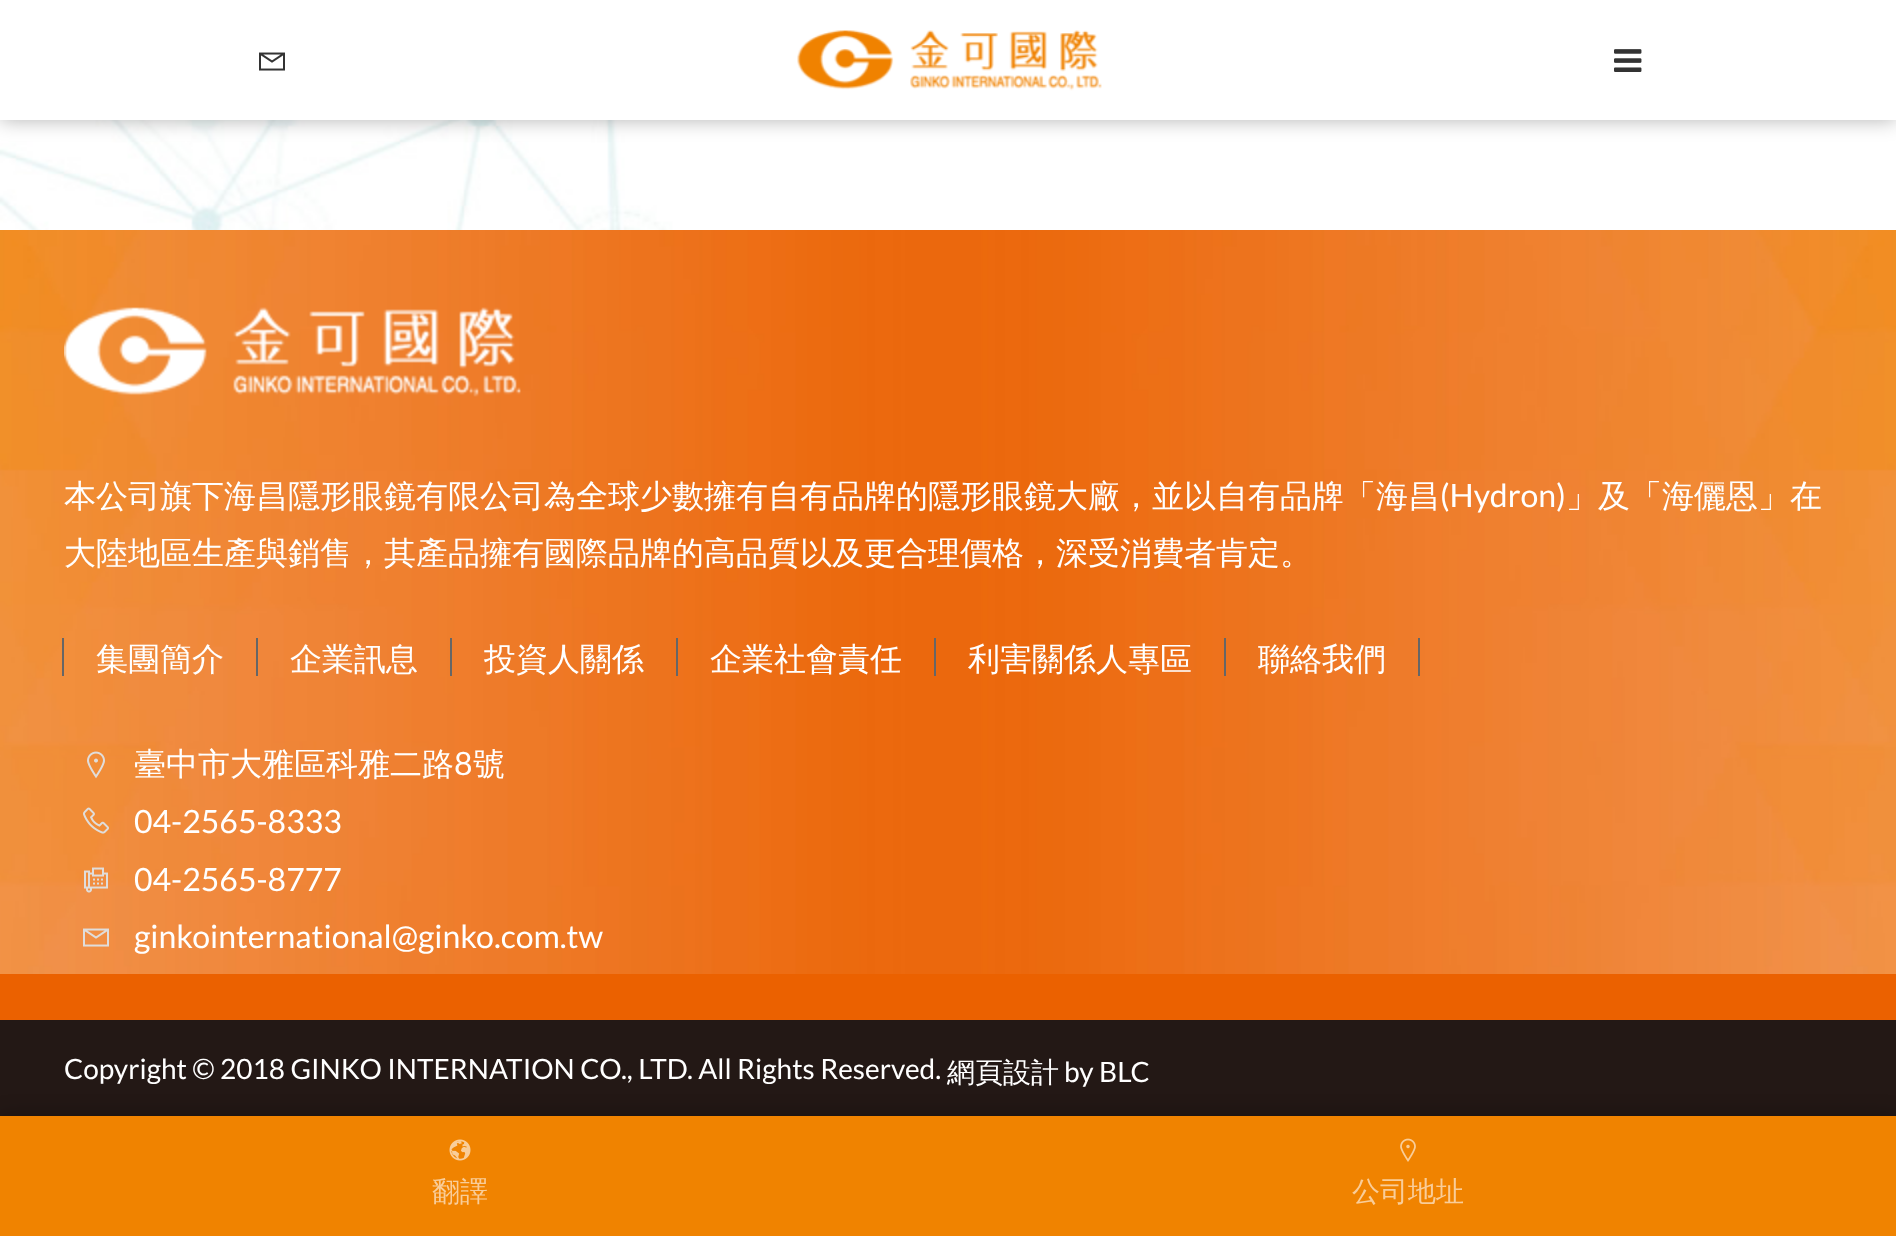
<!DOCTYPE html>
<meta charset="utf-8">
<style>body { margin: 0 } canvas { display: block }</style>
<canvas id="canvas" width="1896" height="1236"></canvas>
<script type="module">
  const canvas = document.getElementById("canvas");
  const ctx = canvas.getContext("2d");
  ctx.miterLimit = 4;
  ctx.fontKerning = "normal";
  async function loadImage(src) {
    const img = new Image();
    img.src = src;
    await img.decode();
    return img;
  }

  ctx.fillStyle = "#ffffff";
  ctx.fillRect(0, 0, 1896, 1236);
  ctx.drawImage(await loadImage("img4.png"), 0, 120, 735, 110);
  ctx.fillStyle = "rgba(0, 0, 0, 0.3)";
  ctx.filter = "blur(10px)";
  ctx.beginPath();
  ctx.rect(0, 0, 1896, 120);
  ctx.fill();
  ctx.filter = "none";
  ctx.fillStyle = "#ffffff";
  ctx.fillRect(0, 0, 1896, 120);
  ctx.drawImage(await loadImage("img1.png"), 259, 52, 26, 19);
  ctx.drawImage(await loadImage("img2.png"), 797, 30, 305, 61);
  ctx.drawImage(await loadImage("img3.png"), 1614, 49, 28, 23);
  ctx.fillStyle = "#eb6100";
  ctx.fillRect(0, 974, 1896, 46);
  ctx.drawImage(await loadImage("img5.png"), 0, 230, 1896, 744);
  ctx.drawImage(await loadImage("img6.png"), 64, 307, 457, 90);
  ctx.font = "500 32px WenQuanYi Zen Hei";
  ctx.fillStyle = "#ffffff";
  ctx.fillText("本公司旗下海昌隱形眼鏡有限公司為全球少數擁有自有品牌的隱形眼鏡大廠，並以自有品牌「海昌", 64, 507);
  ctx.font = "32px Lato";
  ctx.fillText("(Hydron)", 1440, 507);
  ctx.font = "500 32px WenQuanYi Zen Hei";
  ctx.fillText("」及「海儷恩」在", 1566, 507);
  ctx.fillText("大陸地區生產與銷售，其產品擁有國際品牌的高品質以及更合理價格，深受消費者肯定。", 64, 564);
  ctx.fillStyle = "#666666";
  ctx.fillRect(256, 638, 2, 38);
  ctx.fillRect(62, 638, 2, 38);
  ctx.fillStyle = "#ffffff";
  ctx.fillText("集團簡介", 96, 670);
  ctx.fillStyle = "#666666";
  ctx.fillRect(450, 638, 2, 38);
  ctx.fillStyle = "#ffffff";
  ctx.fillText("企業訊息", 290, 670);
  ctx.fillStyle = "#666666";
  ctx.fillRect(676, 638, 2, 38);
  ctx.fillStyle = "#ffffff";
  ctx.fillText("投資人關係", 484, 670);
  ctx.fillStyle = "#666666";
  ctx.fillRect(934, 638, 2, 38);
  ctx.fillStyle = "#ffffff";
  ctx.fillText("企業社會責任", 710, 670);
  ctx.fillStyle = "#666666";
  ctx.fillRect(1224, 638, 2, 38);
  ctx.fillStyle = "#ffffff";
  ctx.fillText("利害關係人專區", 968, 670);
  ctx.fillStyle = "#666666";
  ctx.fillRect(1418, 638, 2, 38);
  ctx.fillStyle = "#ffffff";
  ctx.fillText("聯絡我們", 1258, 670);
  ctx.drawImage(await loadImage("img7.png"), 87, 751, 18, 28);
  ctx.fillText("臺中市大雅區科雅二路", 134, 775);
  ctx.font = "32px Lato";
  ctx.fillText("8", 454, 775);
  ctx.font = "500 32px WenQuanYi Zen Hei";
  ctx.fillText("號", 473, 775);
  ctx.drawImage(await loadImage("img8.png"), 83, 807, 26, 27);
  ctx.font = "32px Lato";
  ctx.fillText("04-2565-8333", 134, 833);
  ctx.drawImage(await loadImage("img9.png"), 84, 867, 24, 26);
  ctx.fillText("04-2565-8777", 134, 891);
  ctx.drawImage(await loadImage("img10.png"), 83, 928, 26, 19);
  ctx.fillText("ginkointernational@ginko.com.tw", 134, 948);
  ctx.fillStyle = "#231815";
  ctx.fillRect(0, 1020, 1896, 96);
  ctx.font = "28px Lato";
  ctx.fillStyle = "#ffffff";
  ctx.fillText("Copyright © 2018 GINKO INTERNATION CO., LTD. All Rights Reserved.", 64, 1079);
  ctx.font = "500 28px WenQuanYi Zen Hei";
  ctx.fillText("網頁設計", 947, 1082);
  ctx.font = "28px Lato";
  ctx.fillText("by BLC", 1064, 1082);
  ctx.fillStyle = "rgba(0, 0, 0, 0.3)";
  ctx.filter = "blur(10px)";
  ctx.beginPath();
  ctx.rect(0, 1116, 1896, 120);
  ctx.fill();
  ctx.filter = "none";
  ctx.fillStyle = "#f08300";
  ctx.fillRect(0, 1116, 1896, 120);
  ctx.drawImage(await loadImage("img11.png"), 449, 1139, 22, 22);
  ctx.font = "500 28px WenQuanYi Zen Hei";
  ctx.fillStyle = "#f9cd99";
  ctx.fillText("翻譯", 432, 1201);
  ctx.drawImage(await loadImage("img12.png"), 1400, 1138, 16, 24);
  ctx.fillText("公司地址", 1352, 1201);
</script>
